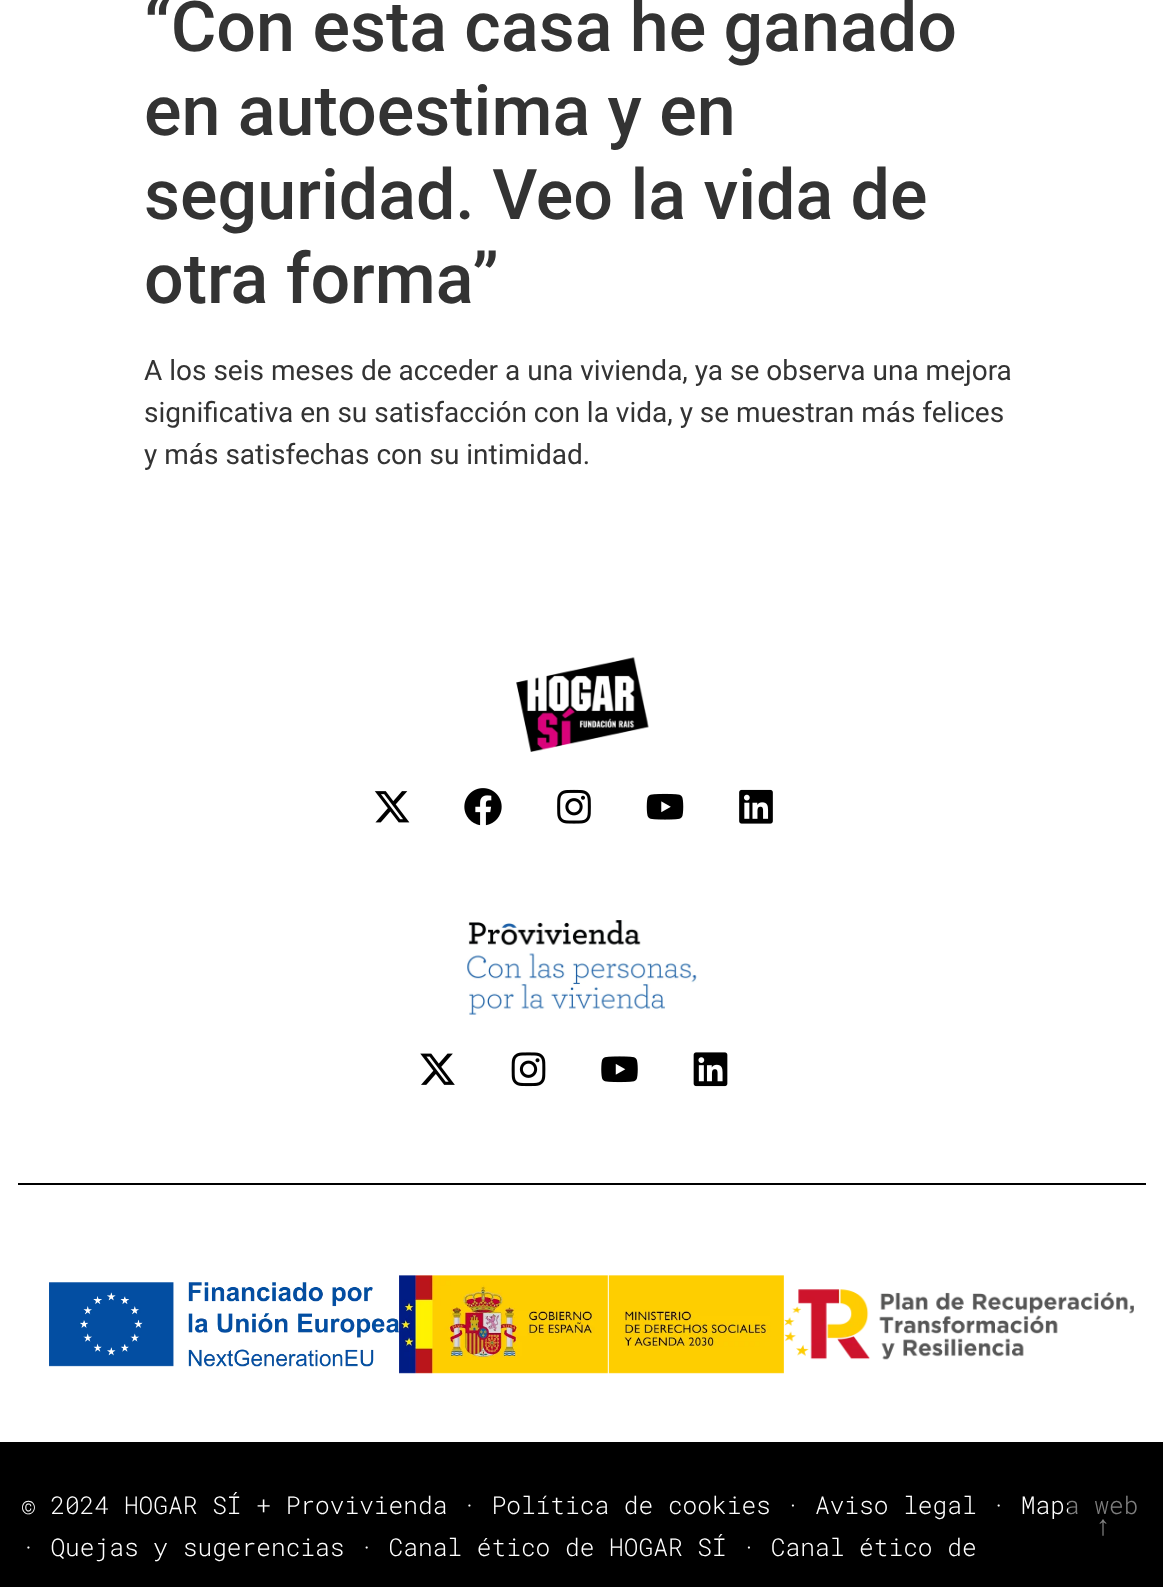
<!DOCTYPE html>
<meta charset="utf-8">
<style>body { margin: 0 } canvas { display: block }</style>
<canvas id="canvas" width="1163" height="1587"></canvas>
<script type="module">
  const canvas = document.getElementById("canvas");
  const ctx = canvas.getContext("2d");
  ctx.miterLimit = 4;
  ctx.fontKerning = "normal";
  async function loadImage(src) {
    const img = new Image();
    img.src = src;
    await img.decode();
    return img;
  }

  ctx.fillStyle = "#ffffff";
  ctx.fillRect(0, 0, 1163, 1587);
  ctx.font = "500 70px Roboto";
  ctx.fillStyle = "#333333";
  ctx.fillText("“Con esta casa he ganado", 144, 51);
  ctx.fillText("en autoestima y en", 144, 135);
  ctx.fillText("seguridad. Veo la vida de", 144, 219);
  ctx.fillText("otra forma”", 144, 303);
  ctx.font = "28px Roboto";
  ctx.fillText("A los seis meses de acceder a una vivienda, ya se observa una mejora", 144, 380);
  ctx.fillText("significativa en su satisfacción con la vida, y se muestran más felices", 144, 422);
  ctx.fillText("y más satisfechas con su intimidad.", 144, 464);
  ctx.drawImage(await loadImage("img1.png"), 516, 657, 133, 95);
  ctx.drawImage(await loadImage("img2.png"), 374, 791, 36, 32);
  ctx.drawImage(await loadImage("img3.png"), 464, 788, 38, 38);
  ctx.drawImage(await loadImage("img4.png"), 557, 789, 34, 35);
  ctx.drawImage(await loadImage("img5.png"), 646, 793, 38, 27);
  ctx.drawImage(await loadImage("img6.png"), 739, 789, 34, 35);
  ctx.drawImage(await loadImage("img7.png"), 467, 920, 230, 95);
  ctx.drawImage(await loadImage("img8.png"), 420, 1053, 35, 32);
  ctx.drawImage(await loadImage("img9.png"), 511, 1052, 35, 35);
  ctx.drawImage(await loadImage("img10.png"), 601, 1056, 37, 27);
  ctx.drawImage(await loadImage("img11.png"), 693, 1052, 35, 35);
  ctx.fillStyle = "#000000";
  ctx.fillRect(18, 1183, 1128, 2);
  ctx.drawImage(await loadImage("img12.png"), 49, 1282, 350, 85);
  ctx.drawImage(await loadImage("img13.png"), 399, 1275, 385, 99);
  ctx.drawImage(await loadImage("img14.png"), 784, 1289, 350, 71);
  ctx.fillRect(0, 1442, 1163, 145);
  ctx.font = "300 24.5px Roboto Mono";
  ctx.fillStyle = "#ffffff";
  ctx.fillText("© 2024 HOGAR SÍ + Provivienda · Política de cookies · Aviso legal · Mapa web", 21, 1514);
  ctx.fillText("· Quejas y sugerencias · Canal ético de HOGAR SÍ · Canal ético de", 21, 1556);
  ctx.fillStyle = "rgba(0, 0, 0, 0.5)";
  ctx.beginPath();
  ctx.roundRect(1068, 1491, 70, 70, 4);
  ctx.fill();
  ctx.font = "28px Liberation Sans";
  ctx.fillStyle = "#808080";
  ctx.fillText("↑", 1096, 1535);
</script>
